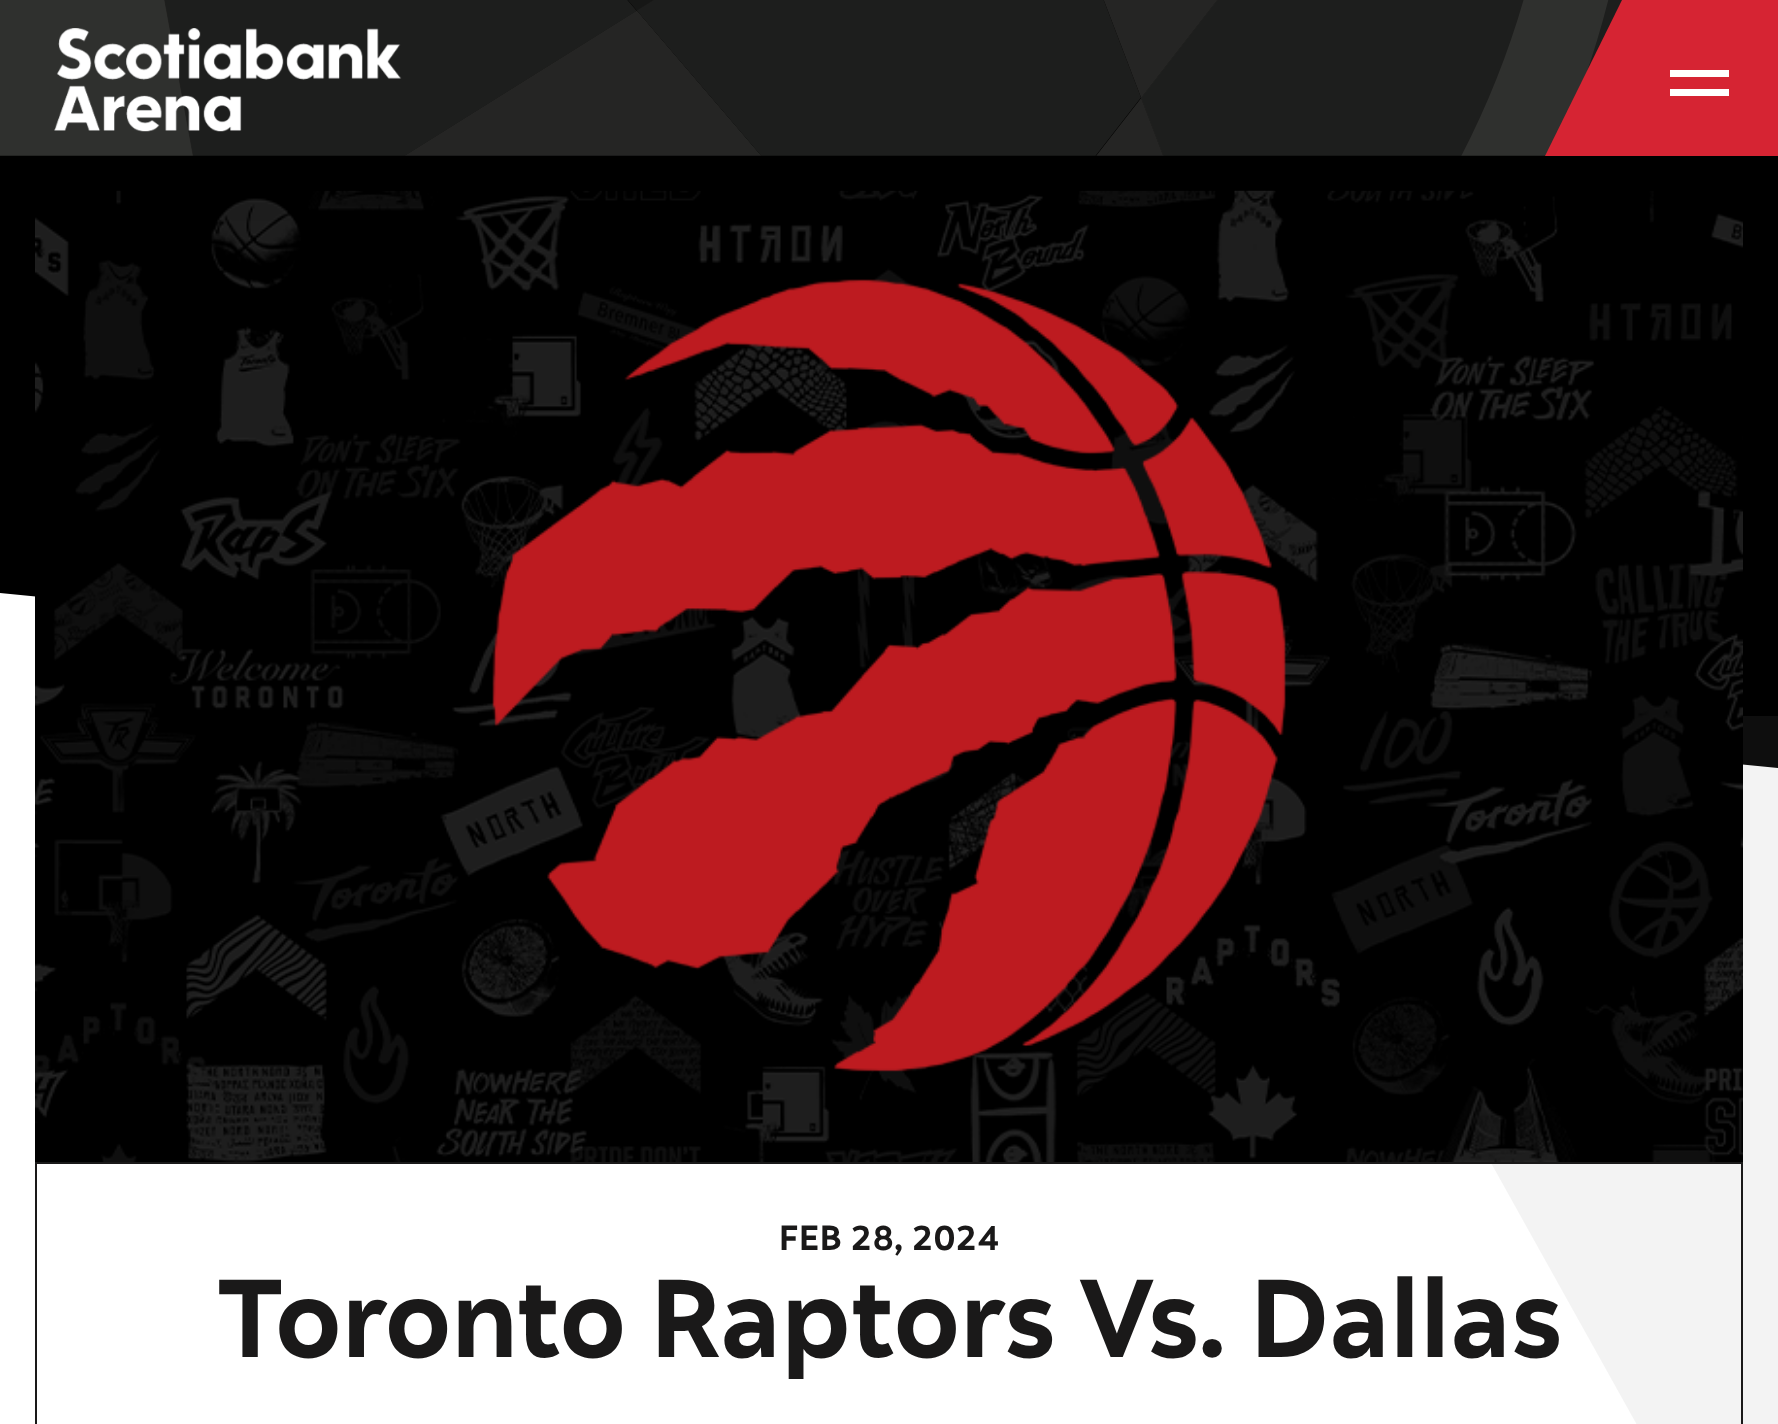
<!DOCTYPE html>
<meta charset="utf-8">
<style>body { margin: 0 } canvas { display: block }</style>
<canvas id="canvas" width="1778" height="1424"></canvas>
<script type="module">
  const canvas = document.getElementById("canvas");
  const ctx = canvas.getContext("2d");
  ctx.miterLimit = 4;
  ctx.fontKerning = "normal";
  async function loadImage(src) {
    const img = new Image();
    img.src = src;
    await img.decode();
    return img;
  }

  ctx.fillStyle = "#ffffff";
  ctx.fillRect(0, 0, 1778, 1424);
  ctx.fillStyle = "#000000";
  ctx.fillRect(0, 156, 1778, 612);
  ctx.fillStyle = "#ffffff";
  ctx.beginPath();
  ctx.moveTo(0, 768);
  ctx.lineTo(0, 593);
  ctx.lineTo(1778, 768);
  ctx.closePath();
  ctx.fill();
  ctx.fillStyle = "rgba(136, 136, 135, 0.1)";
  ctx.beginPath();
  ctx.moveTo(1778, 716);
  ctx.lineTo(1778, 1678);
  ctx.lineTo(1242, 716);
  ctx.closePath();
  ctx.fill();
  ctx.drawImage(await loadImage("img3.png"), 35, 190, 1708, 972);
  ctx.fillStyle = "rgba(0, 0, 0, 0.4)";
  ctx.filter = "blur(26px)";
  ctx.beginPath();
  ctx.rect(0, 7, 1778, 156);
  ctx.fill();
  ctx.filter = "none";
  ctx.fillStyle = "#000000";
  ctx.fillRect(0, 0, 1622, 156);
  ctx.drawImage(await loadImage("img1.png"), 0, 0, 1622, 156);
  ctx.drawImage(await loadImage("img2.png"), 54, 28, 348, 104);
  ctx.fillStyle = "#d62433";
  ctx.fillRect(1622, 0, 156, 156);
  ctx.beginPath();
  ctx.moveTo(1622, 156);
  ctx.lineTo(1545, 156);
  ctx.lineTo(1622, 0);
  ctx.closePath();
  ctx.fill();
  ctx.fillStyle = "#ffffff";
  ctx.fillRect(1670, 70, 59, 7);
  ctx.fillRect(1670, 89, 59, 7);
  ctx.strokeStyle = "#1a1919";
  ctx.lineWidth = 2;
  ctx.strokeRect(36, 1163, 1706, 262);
  ctx.letterSpacing = "0.9px";
  ctx.font = "bold 35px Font";
  ctx.fillStyle = "#1a1919";
  ctx.fillText("FEB 28, 2024", 779, 1250);
  ctx.font = "bold 110.5px Font";
  ctx.fillText("Toronto Raptors Vs. Dallas", 217, 1357);
</script>
